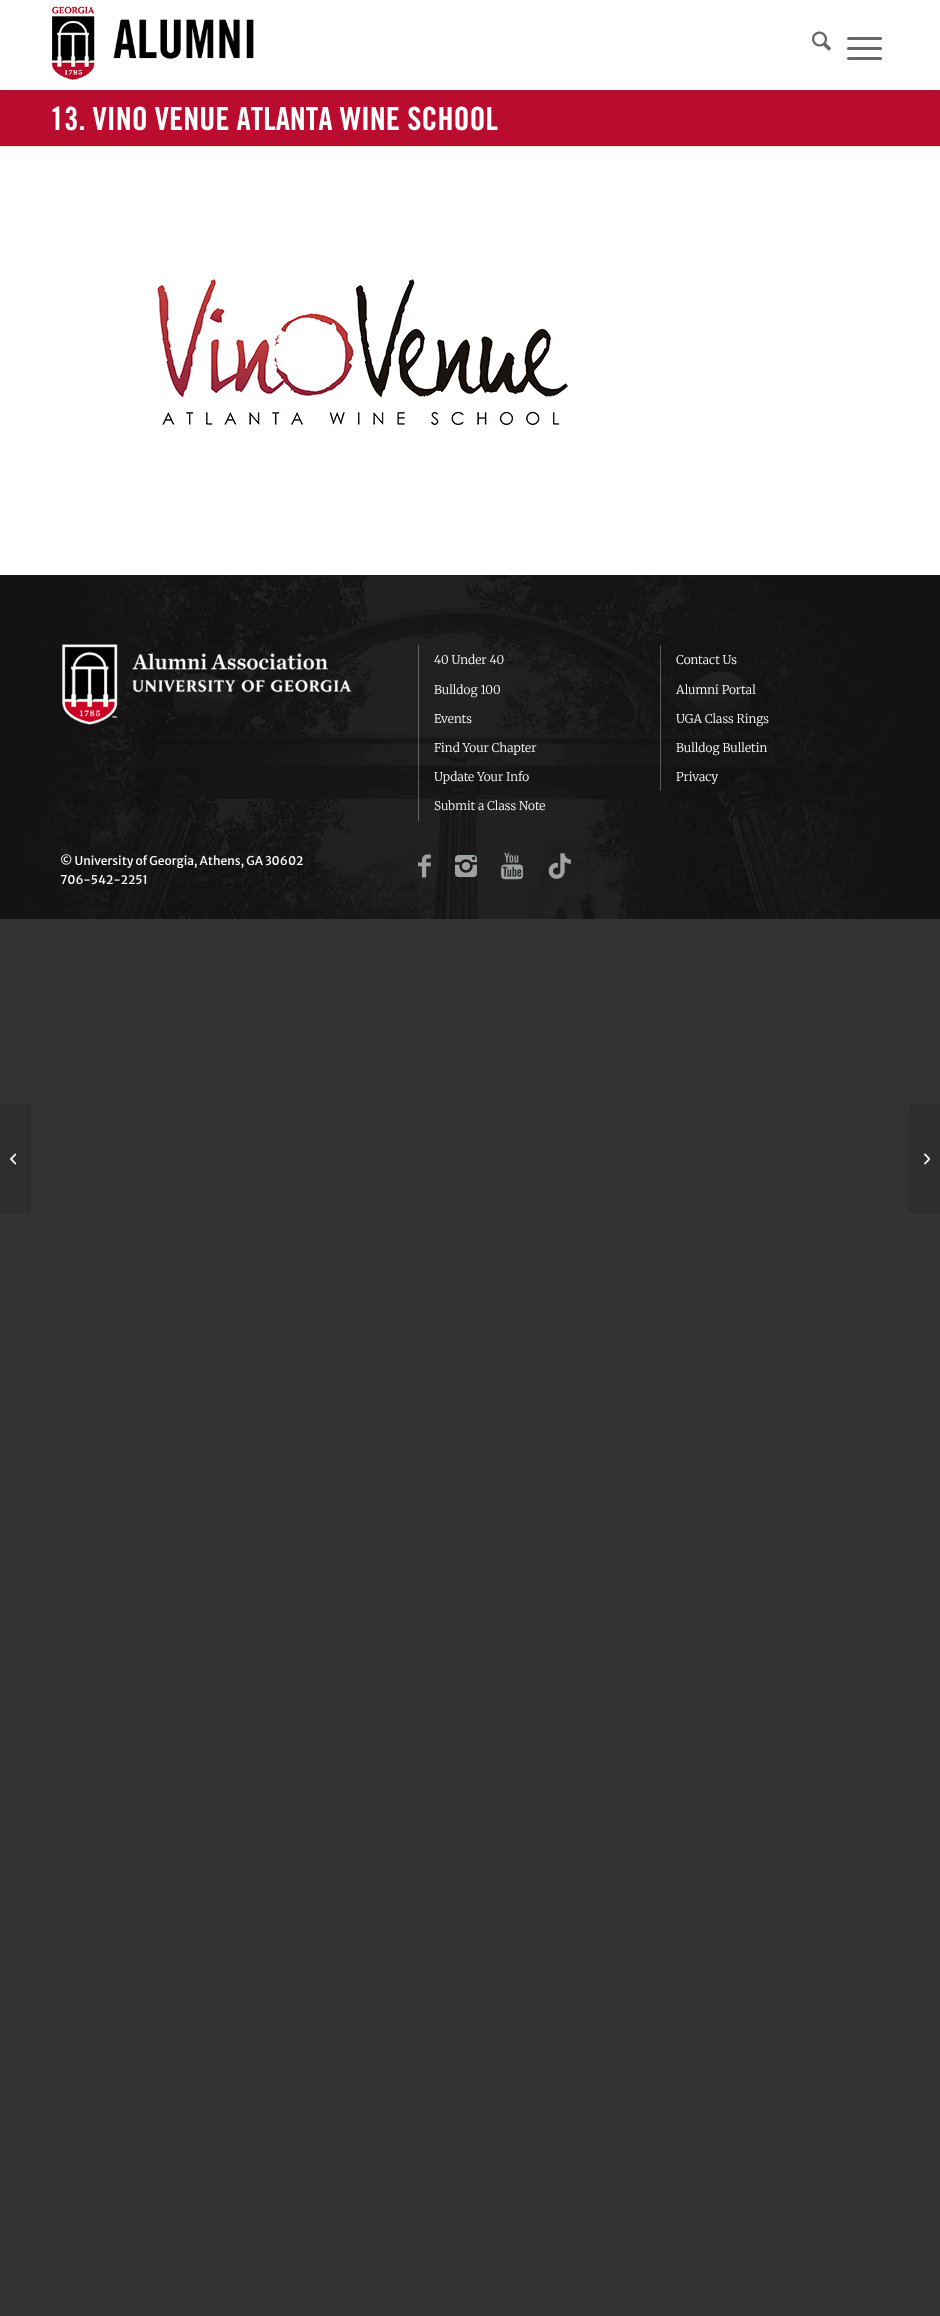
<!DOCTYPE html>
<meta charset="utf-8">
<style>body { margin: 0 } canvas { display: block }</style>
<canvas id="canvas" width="940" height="2316"></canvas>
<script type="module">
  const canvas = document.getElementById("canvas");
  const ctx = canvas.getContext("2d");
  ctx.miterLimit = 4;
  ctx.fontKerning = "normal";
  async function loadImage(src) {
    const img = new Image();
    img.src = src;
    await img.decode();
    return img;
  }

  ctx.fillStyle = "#333333";
  ctx.fillRect(0, 0, 940, 2316);
  ctx.fillStyle = "#ffffff";
  ctx.fillRect(0, 0, 940, 575);
  ctx.fillStyle = "#ba0c2f";
  ctx.fillRect(0, 90, 940, 56);
  ctx.save();
  ctx.beginPath();
  ctx.rect(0, 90, 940, 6);
  ctx.clip();
  ctx.fillStyle = "rgba(50, 50, 50, 0.2)";
  ctx.filter = "blur(5px)";
  ctx.beginPath();
  ctx.rect(0, 0, 940, 90);
  ctx.fill();
  ctx.filter = "none";
  ctx.restore();
  ctx.drawImage(await loadImage("img1.png"), 52, 6, 202, 74);
  ctx.drawImage(await loadImage("img2.png"), 812, 31, 19, 20);
  ctx.fillStyle = "#666666";
  ctx.beginPath();
  ctx.roundRect(847, 47, 35, 3, 1.5);
  ctx.fill();
  ctx.beginPath();
  ctx.roundRect(847, 37, 35, 3, 1.5);
  ctx.fill();
  ctx.beginPath();
  ctx.roundRect(847, 57, 35, 3, 1.5);
  ctx.fill();
  ctx.font = "32px 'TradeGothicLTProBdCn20'";
  ctx.fillStyle = "#ffffff";
  ctx.fillText("13. VINO VENUE ATLANTA WINE SCHOOL", 50, 130);
  ctx.fillStyle = "#e1e1e1";
  ctx.fillRect(0, 146, 940, 1);
  ctx.drawImage(await loadImage("img3.png"), 157, 279, 411, 147);
  ctx.drawImage(await loadImage("img4.png"), 0, 575, 940, 344);
  ctx.drawImage(await loadImage("img5.png"), 62, 644, 290, 81);
  ctx.fillStyle = "#646364";
  ctx.fillRect(418, 645, 1, 88);
  ctx.font = "300 12px Merriweather";
  ctx.fillStyle = "#ffffff";
  ctx.fillText("40 Under 40", 434, 664);
  ctx.fillStyle = "rgba(255, 255, 255, 0.3)";
  ctx.fillRect(660, 645, 1, 30);
  ctx.fillStyle = "#ffffff";
  ctx.fillText("Contact Us", 676, 664);
  ctx.fillText("Bulldog 100", 434, 694);
  ctx.fillStyle = "rgba(255, 255, 255, 0.3)";
  ctx.fillRect(660, 675, 1, 29);
  ctx.fillStyle = "#ffffff";
  ctx.fillText("Alumni Portal", 676, 694);
  ctx.fillText("Events", 434, 723);
  ctx.fillStyle = "rgba(255, 255, 255, 0.3)";
  ctx.fillRect(660, 704, 1, 29);
  ctx.fillStyle = "#ffffff";
  ctx.fillText("UGA Class Rings", 676, 723);
  ctx.fillStyle = "rgba(255, 255, 255, 0.3)";
  ctx.fillRect(418, 733, 1, 29);
  ctx.fillStyle = "#ffffff";
  ctx.fillText("Find Your Chapter", 434, 752);
  ctx.fillStyle = "rgba(255, 255, 255, 0.3)";
  ctx.fillRect(660, 733, 1, 29);
  ctx.fillStyle = "#ffffff";
  ctx.fillText("Bulldog Bulletin", 676, 752);
  ctx.fillStyle = "rgba(255, 255, 255, 0.3)";
  ctx.fillRect(418, 762, 1, 29);
  ctx.fillStyle = "#ffffff";
  ctx.fillText("Update Your Info", 434, 781);
  ctx.fillStyle = "rgba(255, 255, 255, 0.3)";
  ctx.fillRect(660, 762, 1, 29);
  ctx.fillStyle = "#ffffff";
  ctx.fillText("Privacy", 676, 781);
  ctx.fillStyle = "rgba(255, 255, 255, 0.3)";
  ctx.fillRect(418, 791, 1, 30);
  ctx.fillStyle = "#ffffff";
  ctx.fillText("Submit a Class Note", 434, 810);
  ctx.font = "12px Merriweather Sans";
  ctx.fillText("© University of Georgia, Athens, GA 30602", 60, 865);
  ctx.fillText("706-542-2251", 60, 884);
  ctx.drawImage(await loadImage("img6.png"), 418, 854, 13, 24);
  ctx.drawImage(await loadImage("img7.png"), 455, 855, 22, 23);
  ctx.drawImage(await loadImage("img8.png"), 501, 852, 23, 28);
  ctx.drawImage(await loadImage("img9.png"), 548, 853, 23, 26);
  ctx.fillStyle = "#2e2e2e";
  ctx.beginPath();
  ctx.roundRect(0, 1103, 31, 110, [0, 4, 4, 0]);
  ctx.fill();
  ctx.drawImage(await loadImage("img10.png"), 10, 1153, 6, 12);
  ctx.beginPath();
  ctx.roundRect(909, 1103, 31, 110, [4, 0, 0, 4]);
  ctx.fill();
  ctx.drawImage(await loadImage("img11.png"), 924, 1153, 6, 12);
</script>
